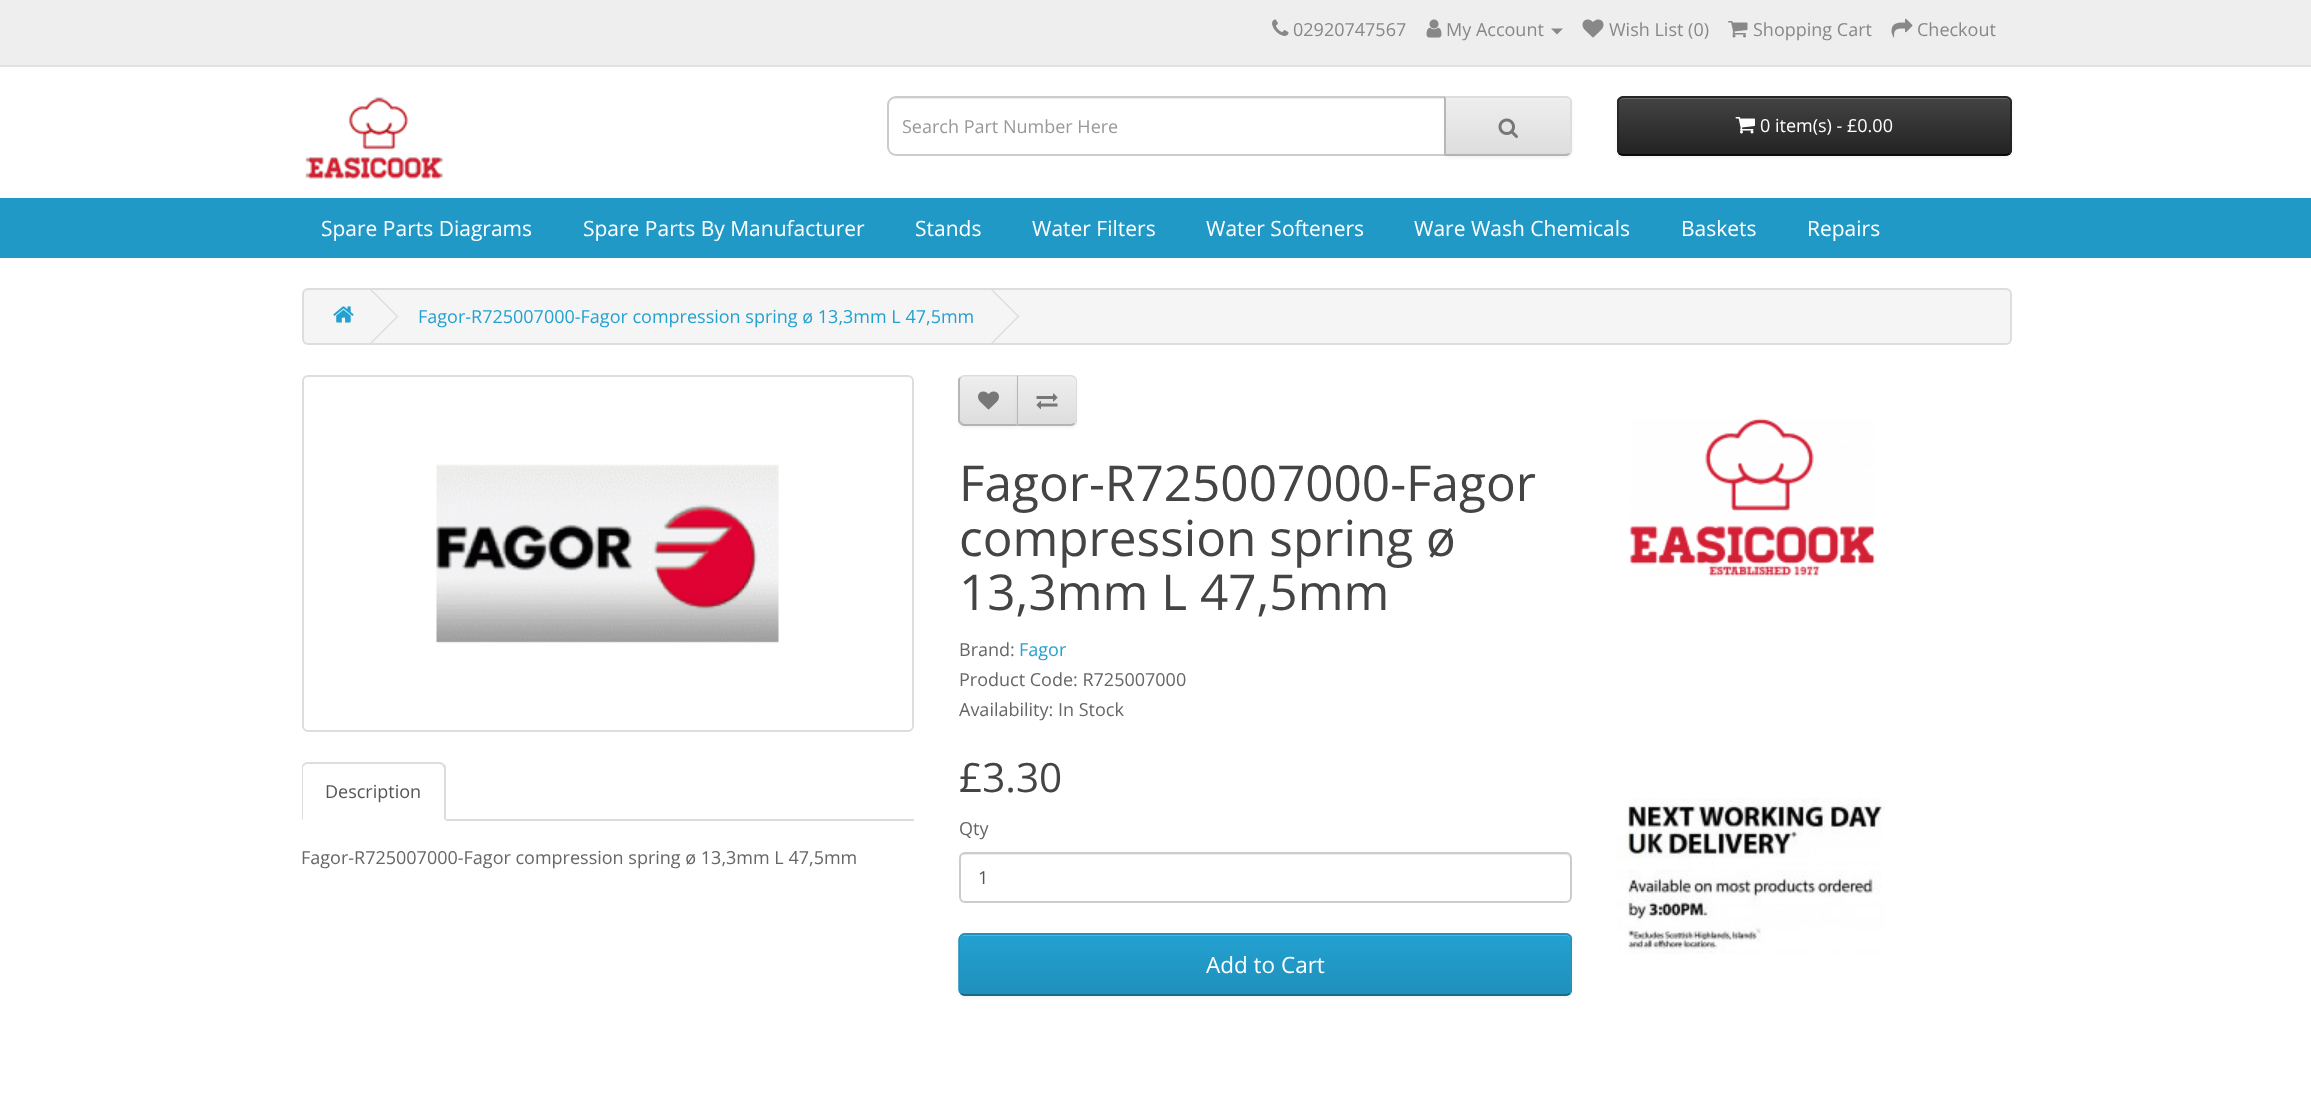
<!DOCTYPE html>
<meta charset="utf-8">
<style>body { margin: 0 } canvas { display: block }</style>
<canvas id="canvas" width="2311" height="1111"></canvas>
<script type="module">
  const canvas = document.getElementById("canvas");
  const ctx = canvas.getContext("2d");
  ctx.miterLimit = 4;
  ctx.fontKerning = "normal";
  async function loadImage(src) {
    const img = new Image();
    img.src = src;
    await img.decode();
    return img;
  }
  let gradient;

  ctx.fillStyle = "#ffffff";
  ctx.fillRect(0, 0, 2311, 1111);
  ctx.fillStyle = "#eeeeee";
  ctx.fillRect(0, 0, 2311, 65);
  ctx.fillStyle = "#e2e2e2";
  ctx.fillRect(0, 65, 2311, 2);
  ctx.drawImage(await loadImage("img1.png"), 1272, 19, 17, 17);
  ctx.font = "18px Open Sans";
  ctx.fillStyle = "#888888";
  ctx.fillText("02920747567", 1293, 36);
  ctx.drawImage(await loadImage("img2.png"), 1426, 19, 16, 19);
  ctx.fillText("My Account", 1446, 36);
  ctx.beginPath();
  ctx.moveTo(1551, 28.5);
  ctx.lineTo(1563, 28.5);
  ctx.lineTo(1557, 34.5);
  ctx.closePath();
  ctx.fill();
  ctx.drawImage(await loadImage("img3.png"), 1582, 19, 22, 19);
  ctx.fillText("Wish List (0)", 1609, 36);
  ctx.drawImage(await loadImage("img4.png"), 1728, 21, 20, 17);
  ctx.fillText("Shopping Cart", 1753, 36);
  ctx.drawImage(await loadImage("img5.png"), 1891, 18, 22, 20);
  ctx.fillText("Checkout", 1917, 36);
  ctx.drawImage(await loadImage("img6.png"), 305, 97, 138, 82);
  ctx.fillStyle = "#ececec";
  ctx.beginPath();
  ctx.moveTo(896, 99);
  ctx.lineTo(1444, 99);
  ctx.lineTo(1444, 155);
  ctx.lineTo(1445, 155);
  ctx.lineTo(1445, 98);
  ctx.lineTo(896, 98);
  ctx.bezierCurveTo(892, 98, 888, 102, 888, 106);
  ctx.bezierCurveTo(888, 102, 891, 99, 896, 99);
  ctx.closePath();
  ctx.fill();
  ctx.beginPath();
  ctx.roundRect(888, 97, 557, 58, [8, 0, 0, 8]);
  ctx.strokeStyle = "#cccccc";
  ctx.lineWidth = 2;
  ctx.stroke();
  ctx.fillStyle = "#999999";
  ctx.fillText("Search Part Number Here", 902, 133);
  ctx.fillStyle = "rgba(0, 0, 0, 0.05)";
  ctx.filter = "blur(1.5px)";
  ctx.beginPath();
  ctx.roundRect(1445, 98, 127, 60, 6);
  ctx.fill();
  ctx.filter = "none";
  ctx.fillStyle = "#e7e7e7";
  ctx.beginPath();
  ctx.roundRect(1445, 96, 127, 60, [0, 6, 6, 0]);
  ctx.fill();
  ctx.save();
  ctx.beginPath();
  ctx.roundRect(1445, 96, 127, 60, [0, 6, 6, 0]);
  ctx.clip();
  gradient = ctx.createLinearGradient(1508, 98, 1508, 155);
  gradient.addColorStop(0, "#eeeeee");
  gradient.addColorStop(1, "#dddddd");
  ctx.fillStyle = gradient;
  ctx.fillRect(1445, 98, 127, 57);
  ctx.restore();
  ctx.fillStyle = "rgba(255, 255, 255, 0.2)";
  ctx.beginPath();
  ctx.moveTo(1446, 99);
  ctx.lineTo(1566, 99);
  ctx.bezierCurveTo(1572, 99, 1570, 110, 1570, 112);
  ctx.lineTo(1570, 153);
  ctx.bezierCurveTo(1571, 152, 1571, 151, 1571, 150);
  ctx.lineTo(1571, 103);
  ctx.bezierCurveTo(1571, 100, 1569, 98, 1566, 98);
  ctx.lineTo(1446, 98);
  ctx.closePath();
  ctx.fill();
  ctx.fillStyle = "#dddddd";
  ctx.beginPath();
  ctx.moveTo(1444, 96);
  ctx.lineTo(1446, 98);
  ctx.lineTo(1566, 98);
  ctx.lineTo(1569, 99);
  ctx.lineTo(1570, 98);
  ctx.bezierCurveTo(1569, 97, 1568, 96, 1566, 96);
  ctx.closePath();
  ctx.fill();
  ctx.beginPath();
  ctx.moveTo(1572, 150);
  ctx.lineTo(1572, 102);
  ctx.bezierCurveTo(1572, 100, 1571, 99, 1570, 98);
  ctx.lineTo(1569, 99);
  ctx.bezierCurveTo(1570, 100, 1570, 101, 1570, 102);
  ctx.lineTo(1570, 150);
  ctx.bezierCurveTo(1570, 151, 1570, 152, 1569, 153);
  ctx.lineTo(1570, 154);
  ctx.bezierCurveTo(1571, 153, 1572, 152, 1572, 150);
  ctx.closePath();
  ctx.fill();
  ctx.fillStyle = "#b3b3b3";
  ctx.beginPath();
  ctx.moveTo(1444, 156);
  ctx.lineTo(1567, 156);
  ctx.lineTo(1570, 154);
  ctx.lineTo(1569, 153);
  ctx.lineTo(1566, 154);
  ctx.lineTo(1446, 154);
  ctx.closePath();
  ctx.fill();
  ctx.fillStyle = "#b7b7b7";
  ctx.beginPath();
  ctx.moveTo(1446, 98);
  ctx.lineTo(1444, 96);
  ctx.lineTo(1444, 156);
  ctx.lineTo(1446, 154);
  ctx.closePath();
  ctx.fill();
  ctx.drawImage(await loadImage("img7.png"), 1498, 118, 20, 20);
  ctx.fillStyle = "rgba(0, 0, 0, 0.05)";
  ctx.filter = "blur(1.5px)";
  ctx.beginPath();
  ctx.roundRect(1617, 98, 395, 60, 6);
  ctx.fill();
  ctx.filter = "none";
  ctx.fillStyle = "#363636";
  ctx.beginPath();
  ctx.roundRect(1617, 96, 395, 60, 6);
  ctx.fill();
  ctx.save();
  ctx.beginPath();
  ctx.roundRect(1617, 96, 395, 60, 6);
  ctx.clip();
  gradient = ctx.createLinearGradient(1814, 97, 1814, 155);
  gradient.addColorStop(0, "#444444");
  gradient.addColorStop(1, "#222222");
  ctx.fillStyle = gradient;
  ctx.fillRect(1617, 98, 395, 57);
  ctx.restore();
  ctx.fillStyle = "#696969";
  ctx.beginPath();
  ctx.moveTo(1623, 99);
  ctx.lineTo(2006, 99);
  ctx.bezierCurveTo(2008, 99, 2010, 101, 2010, 104);
  ctx.lineTo(2010, 103);
  ctx.bezierCurveTo(2010, 100, 2008, 98, 2005, 98);
  ctx.lineTo(1624, 98);
  ctx.bezierCurveTo(1622, 98, 1621, 99, 1620, 100);
  ctx.closePath();
  ctx.fill();
  ctx.beginPath();
  ctx.moveTo(2009, 153.5);
  ctx.bezierCurveTo(2008, 154.5, 2007, 155, 2005.5, 155);
  ctx.lineTo(1623, 155);
  ctx.bezierCurveTo(1621.5, 155, 1620.5, 154.5, 1619.5, 153.5);
  ctx.strokeStyle = "#000000";
  ctx.lineWidth = 1.5;
  ctx.stroke();
  ctx.beginPath();
  ctx.moveTo(1619.5, 153.5);
  ctx.bezierCurveTo(1618.5, 152.5, 1618, 151.5, 1618, 150);
  ctx.lineTo(1618, 102);
  ctx.bezierCurveTo(1618, 100.5, 1618.5, 99.5, 1619.5, 98.5);
  ctx.bezierCurveTo(1620.5, 97.5, 1621.5, 97, 1623, 97);
  ctx.lineTo(2005.5, 97);
  ctx.bezierCurveTo(2007, 97, 2008, 97.5, 2009, 98.5);
  ctx.bezierCurveTo(2010, 99.5, 2011, 100.5, 2011, 102);
  ctx.lineTo(2011, 150);
  ctx.bezierCurveTo(2011, 151.5, 2010, 152.5, 2009, 153.5);
  ctx.strokeStyle = "#222222";
  ctx.stroke();
  ctx.drawImage(await loadImage("img8.png"), 1735, 117, 20, 17);
  ctx.fillStyle = "#ffffff";
  ctx.fillText("0 item(s) - £0.00", 1760, 132);
  ctx.fillStyle = "#2199c7";
  ctx.fillRect(0, 198, 2311, 60);
  ctx.font = "21px Open Sans";
  ctx.fillStyle = "#ffffff";
  ctx.fillText("Spare Parts Diagrams", 321, 236);
  ctx.fillText("Spare Parts By Manufacturer", 583, 236);
  ctx.fillText("Stands", 915, 236);
  ctx.fillText("Water Filters", 1032, 236);
  ctx.fillText("Water Softeners", 1206, 236);
  ctx.fillText("Ware Wash Chemicals", 1414, 236);
  ctx.fillText("Baskets", 1681, 236);
  ctx.fillText("Repairs", 1807, 236);
  ctx.fillStyle = "#f5f5f5";
  ctx.beginPath();
  ctx.roundRect(303, 289, 1708, 55, 5);
  ctx.fill();
  ctx.strokeStyle = "#dddddd";
  ctx.lineWidth = 2;
  ctx.stroke();
  ctx.drawImage(await loadImage("img9.png"), 333, 306, 21, 17);
  ctx.fillStyle = "#dddddd";
  ctx.beginPath();
  ctx.moveTo(370, 290);
  ctx.lineTo(371, 289);
  ctx.lineTo(398.5, 316.5);
  ctx.lineTo(397.5, 317.5);
  ctx.closePath();
  ctx.fill();
  ctx.beginPath();
  ctx.moveTo(370, 343);
  ctx.lineTo(397.5, 315.5);
  ctx.lineTo(398.5, 316.5);
  ctx.lineTo(371, 344);
  ctx.closePath();
  ctx.fill();
  ctx.font = "18px Open Sans";
  ctx.fillStyle = "#23a1d1";
  ctx.fillText("Fagor-R725007000-Fagor compression spring ø 13,3mm L 47,5mm", 418, 323);
  ctx.fillStyle = "#dddddd";
  ctx.beginPath();
  ctx.moveTo(991, 290);
  ctx.lineTo(992, 289);
  ctx.lineTo(1019.5, 316.5);
  ctx.lineTo(1018.5, 317.5);
  ctx.closePath();
  ctx.fill();
  ctx.beginPath();
  ctx.moveTo(991, 343);
  ctx.lineTo(1018.5, 315.5);
  ctx.lineTo(1019.5, 316.5);
  ctx.lineTo(992, 344);
  ctx.closePath();
  ctx.fill();
  ctx.beginPath();
  ctx.roundRect(303, 376, 610, 355, 5);
  ctx.stroke();
  ctx.drawImage(await loadImage("img10.png"), 436, 464, 343, 179);
  ctx.fillRect(446, 819, 468, 2);
  ctx.beginPath();
  ctx.moveTo(308, 762);
  ctx.bezierCurveTo(306, 762, 304, 763, 303, 764);
  ctx.lineTo(305, 765);
  ctx.bezierCurveTo(305, 764, 307, 764, 308, 764);
  ctx.lineTo(440, 764);
  ctx.lineTo(442, 765);
  ctx.lineTo(444, 764);
  ctx.bezierCurveTo(443, 763, 441, 762, 440, 762);
  ctx.closePath();
  ctx.fill();
  ctx.beginPath();
  ctx.moveTo(446, 820);
  ctx.lineTo(444, 819);
  ctx.lineTo(444, 768);
  ctx.lineTo(442, 765);
  ctx.lineTo(444, 764);
  ctx.lineTo(446, 766);
  ctx.closePath();
  ctx.fill();
  ctx.beginPath();
  ctx.moveTo(303, 764);
  ctx.bezierCurveTo(302, 765, 302, 767, 302, 768);
  ctx.lineTo(302, 820);
  ctx.lineTo(303, 819);
  ctx.lineTo(303, 767);
  ctx.lineTo(305, 765);
  ctx.closePath();
  ctx.fill();
  ctx.fillStyle = "#555555";
  ctx.fillText("Description", 325, 798);
  ctx.fillStyle = "#666666";
  ctx.fillText("Fagor-R725007000-Fagor compression spring ø 13,3mm L 47,5mm", 301, 864);
  ctx.fillStyle = "rgba(0, 0, 0, 0.05)";
  ctx.filter = "blur(1.5px)";
  ctx.beginPath();
  ctx.roundRect(959, 377, 60, 51, 6);
  ctx.fill();
  ctx.filter = "none";
  ctx.fillStyle = "#e7e7e7";
  ctx.beginPath();
  ctx.roundRect(959, 375, 60, 51, [6, 0, 0, 6]);
  ctx.fill();
  ctx.save();
  ctx.beginPath();
  ctx.roundRect(959, 375, 60, 51, [6, 0, 0, 6]);
  ctx.clip();
  gradient = ctx.createLinearGradient(989, 377, 989, 425);
  gradient.addColorStop(0, "#eeeeee");
  gradient.addColorStop(1, "#dddddd");
  ctx.fillStyle = gradient;
  ctx.fillRect(959, 377, 58, 48);
  ctx.restore();
  ctx.fillStyle = "#f1f1f1";
  ctx.beginPath();
  ctx.moveTo(964, 378);
  ctx.lineTo(1017, 378);
  ctx.lineTo(1017, 377);
  ctx.lineTo(965, 377);
  ctx.bezierCurveTo(962, 377, 960, 379, 960, 382);
  ctx.bezierCurveTo(960, 380, 962, 378, 964, 378);
  ctx.closePath();
  ctx.fill();
  ctx.fillStyle = "#dddddd";
  ctx.beginPath();
  ctx.moveTo(964, 375);
  ctx.bezierCurveTo(963, 375, 961, 376, 960, 377);
  ctx.lineTo(961, 378);
  ctx.lineTo(964, 376);
  ctx.lineTo(1017, 376);
  ctx.lineTo(1018, 375);
  ctx.closePath();
  ctx.fill();
  ctx.fillStyle = "#b3b3b3";
  ctx.beginPath();
  ctx.moveTo(964, 426);
  ctx.lineTo(1018, 426);
  ctx.lineTo(1016, 424);
  ctx.lineTo(964, 424);
  ctx.lineTo(962, 423);
  ctx.lineTo(960, 424);
  ctx.bezierCurveTo(961, 425, 963, 426, 964, 426);
  ctx.closePath();
  ctx.fill();
  ctx.fillStyle = "#b7b7b7";
  ctx.beginPath();
  ctx.moveTo(958, 379);
  ctx.lineTo(960, 377);
  ctx.lineTo(961, 378);
  ctx.bezierCurveTo(960, 379, 960, 380, 960, 381);
  ctx.lineTo(960, 420);
  ctx.bezierCurveTo(960, 421, 961, 422, 962, 423);
  ctx.lineTo(960, 424);
  ctx.lineTo(958, 422);
  ctx.closePath();
  ctx.fill();
  ctx.drawImage(await loadImage("img11.png"), 978, 391, 21, 19);
  ctx.fillStyle = "rgba(0, 0, 0, 0.05)";
  ctx.filter = "blur(1.5px)";
  ctx.beginPath();
  ctx.roundRect(1017, 377, 60, 51, 6);
  ctx.fill();
  ctx.filter = "none";
  ctx.fillStyle = "#e7e7e7";
  ctx.beginPath();
  ctx.roundRect(1017, 375, 60, 51, [0, 6, 6, 0]);
  ctx.fill();
  ctx.save();
  ctx.beginPath();
  ctx.roundRect(1017, 375, 60, 51, [0, 6, 6, 0]);
  ctx.clip();
  gradient = ctx.createLinearGradient(1047, 377, 1047, 425);
  gradient.addColorStop(0, "#eeeeee");
  gradient.addColorStop(1, "#dddddd");
  ctx.fillStyle = gradient;
  ctx.fillRect(1018, 377, 59, 48);
  ctx.restore();
  ctx.fillStyle = "#f1f1f1";
  ctx.beginPath();
  ctx.moveTo(1019, 377);
  ctx.lineTo(1019, 378);
  ctx.lineTo(1071, 378);
  ctx.bezierCurveTo(1073, 378, 1076, 380, 1076, 382);
  ctx.bezierCurveTo(1076, 379, 1074, 377, 1071, 377);
  ctx.closePath();
  ctx.fill();
  ctx.fillStyle = "#dddddd";
  ctx.beginPath();
  ctx.moveTo(1017, 375);
  ctx.lineTo(1018, 376);
  ctx.lineTo(1071, 376);
  ctx.lineTo(1074, 378);
  ctx.lineTo(1075, 377);
  ctx.bezierCurveTo(1074, 376, 1072, 375, 1071, 375);
  ctx.closePath();
  ctx.fill();
  ctx.beginPath();
  ctx.moveTo(1077, 420);
  ctx.lineTo(1077, 381);
  ctx.bezierCurveTo(1077, 380, 1076, 378, 1075, 377);
  ctx.lineTo(1074, 378);
  ctx.bezierCurveTo(1075, 379, 1076, 380, 1076, 381);
  ctx.lineTo(1076, 420);
  ctx.bezierCurveTo(1076, 421, 1075, 422, 1074, 423);
  ctx.lineTo(1075, 424);
  ctx.bezierCurveTo(1076, 423, 1077, 422, 1077, 420);
  ctx.closePath();
  ctx.fill();
  ctx.fillStyle = "#b3b3b3";
  ctx.beginPath();
  ctx.moveTo(1071, 426);
  ctx.bezierCurveTo(1072, 426, 1074, 425, 1075, 424);
  ctx.lineTo(1074, 423);
  ctx.lineTo(1071, 424);
  ctx.lineTo(1019, 424);
  ctx.lineTo(1017, 426);
  ctx.closePath();
  ctx.fill();
  ctx.fillStyle = "#b7b7b7";
  ctx.beginPath();
  ctx.moveTo(1017, 375);
  ctx.lineTo(1017, 426);
  ctx.lineTo(1019, 424);
  ctx.lineTo(1018, 424);
  ctx.lineTo(1018, 376);
  ctx.closePath();
  ctx.fill();
  ctx.drawImage(await loadImage("img12.png"), 1036, 393, 22, 17);
  ctx.font = "49.5px Open Sans";
  ctx.fillStyle = "#444444";
  ctx.fillText("Fagor-R725007000-Fagor", 959, 501);
  ctx.fillText("compression spring ø", 959, 556);
  ctx.fillText("13,3mm L 47,5mm", 959, 610);
  ctx.font = "18px Open Sans";
  ctx.fillStyle = "#666666";
  ctx.fillText("Brand:", 959, 656);
  ctx.fillStyle = "#23a1d1";
  ctx.fillText("Fagor", 1019, 656);
  ctx.fillStyle = "#666666";
  ctx.fillText("Product Code: R725007000", 959, 686);
  ctx.fillText("Availability: In Stock", 959, 716);
  ctx.font = "40.5px Open Sans";
  ctx.fillStyle = "#444444";
  ctx.fillText("£3.30", 959, 792);
  ctx.font = "18px Open Sans";
  ctx.fillStyle = "#666666";
  ctx.fillText("Qty", 959, 835);
  ctx.fillStyle = "#ececec";
  ctx.beginPath();
  ctx.moveTo(964, 855);
  ctx.lineTo(1566, 855);
  ctx.bezierCurveTo(1568, 855, 1570, 857, 1570, 860);
  ctx.lineTo(1570, 898);
  ctx.lineTo(1569, 901);
  ctx.bezierCurveTo(1570, 900, 1571, 898, 1571, 897);
  ctx.lineTo(1571, 859);
  ctx.bezierCurveTo(1571, 856, 1569, 854, 1566, 854);
  ctx.lineTo(965, 854);
  ctx.bezierCurveTo(962, 854, 960, 856, 960, 859);
  ctx.lineTo(960, 860);
  ctx.bezierCurveTo(960, 857, 962, 855, 964, 855);
  ctx.closePath();
  ctx.fill();
  ctx.beginPath();
  ctx.roundRect(960, 853, 611, 49, 5);
  ctx.strokeStyle = "#cccccc";
  ctx.stroke();
  ctx.fillStyle = "#555555";
  ctx.fillText("1", 978, 884);
  ctx.fillStyle = "rgba(0, 0, 0, 0.05)";
  ctx.filter = "blur(1.5px)";
  ctx.beginPath();
  ctx.roundRect(959, 935, 613, 63, 6);
  ctx.fill();
  ctx.filter = "none";
  ctx.fillStyle = "#229ac8";
  ctx.beginPath();
  ctx.roundRect(959, 933, 613, 63, 6);
  ctx.fill();
  ctx.save();
  ctx.beginPath();
  ctx.roundRect(959, 933, 613, 63, 6);
  ctx.clip();
  gradient = ctx.createLinearGradient(1265, 935, 1265, 995);
  gradient.addColorStop(0, "#23a1d1");
  gradient.addColorStop(1, "#1f90bb");
  ctx.fillStyle = gradient;
  ctx.fillRect(959, 935, 613, 60);
  ctx.restore();
  ctx.fillStyle = "rgba(255, 255, 255, 0.2)";
  ctx.beginPath();
  ctx.moveTo(964, 936);
  ctx.lineTo(1566, 936);
  ctx.bezierCurveTo(1568, 936, 1570, 938, 1570, 940);
  ctx.lineTo(1570, 993);
  ctx.bezierCurveTo(1571, 992, 1571, 991, 1571, 990);
  ctx.lineTo(1571, 940);
  ctx.bezierCurveTo(1571, 937, 1569, 935, 1566, 935);
  ctx.lineTo(965, 935);
  ctx.bezierCurveTo(962, 935, 960, 937, 960, 940);
  ctx.bezierCurveTo(960, 938, 962, 936, 964, 936);
  ctx.closePath();
  ctx.fill();
  ctx.beginPath();
  ctx.moveTo(1569.5, 993.5);
  ctx.bezierCurveTo(1568.5, 994.5, 1567.5, 995, 1566, 995);
  ctx.lineTo(964.5, 995);
  ctx.bezierCurveTo(963, 995, 962, 994.5, 961, 993.5);
  ctx.strokeStyle = "#145e7a";
  ctx.lineWidth = 1.5;
  ctx.stroke();
  ctx.beginPath();
  ctx.moveTo(961, 993.5);
  ctx.bezierCurveTo(960, 992.5, 959, 991.5, 959, 990);
  ctx.lineTo(959, 939);
  ctx.bezierCurveTo(959, 937.5, 960, 936.5, 961, 935.5);
  ctx.bezierCurveTo(962, 934.5, 963, 934, 964.5, 934);
  ctx.lineTo(1566, 934);
  ctx.bezierCurveTo(1567.5, 934, 1568.5, 934.5, 1569.5, 935.5);
  ctx.bezierCurveTo(1570.5, 936.5, 1571, 937.5, 1571, 939);
  ctx.lineTo(1571, 990);
  ctx.bezierCurveTo(1571, 991.5, 1570.5, 992.5, 1569.5, 993.5);
  ctx.strokeStyle = "#1f90bb";
  ctx.stroke();
  ctx.font = "22.5px Open Sans";
  ctx.fillStyle = "#ffffff";
  ctx.fillText("Add to Cart", 1206, 973);
  ctx.drawImage(await loadImage("img13.png"), 1630, 418, 245, 159);
  ctx.drawImage(await loadImage("img14.png"), 1617, 798, 268, 156);
</script>
